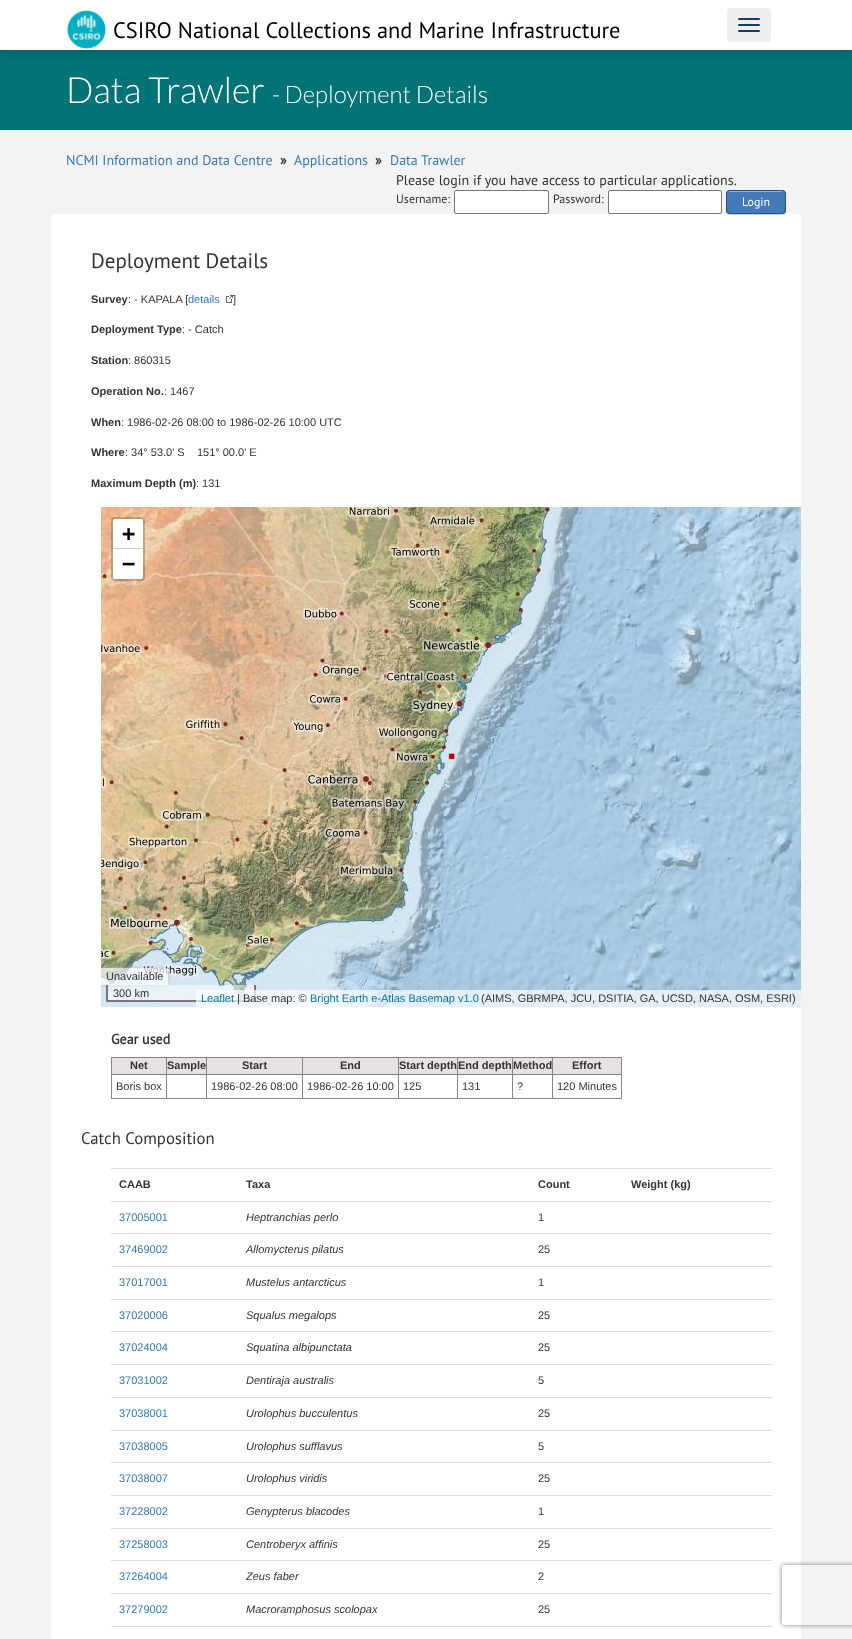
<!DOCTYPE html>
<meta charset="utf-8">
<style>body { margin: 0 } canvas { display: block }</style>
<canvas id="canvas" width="852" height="1639"></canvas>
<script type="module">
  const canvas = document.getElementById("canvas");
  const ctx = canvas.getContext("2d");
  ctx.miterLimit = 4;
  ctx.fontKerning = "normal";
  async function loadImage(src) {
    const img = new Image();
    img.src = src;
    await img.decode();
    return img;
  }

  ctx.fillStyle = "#f3f3f3";
  ctx.fillRect(0, 0, 852, 1639);
  ctx.fillStyle = "#007377";
  ctx.fillRect(0, 50, 852, 80);
  ctx.fillStyle = "rgba(0, 0, 0, 0.2)";
  ctx.filter = "blur(5px)";
  ctx.beginPath();
  ctx.rect(0, 2, 852, 50);
  ctx.fill();
  ctx.filter = "none";
  ctx.fillStyle = "#ffffff";
  ctx.fillRect(0, 0, 852, 50);
  ctx.drawImage(await loadImage("img1.png"), 67, 10, 39, 39);
  ctx.font = "22.4px PT Sans";
  ctx.fillStyle = "#000000";
  ctx.fillText("CSIRO National Collections and Marine Infrastructure", 113, 38);
  ctx.fillStyle = "#eeeeee";
  ctx.beginPath();
  ctx.roundRect(727, 8, 44, 34, 4);
  ctx.fill();
  ctx.fillStyle = "#153d6b";
  ctx.beginPath();
  ctx.roundRect(738, 18, 22, 2, 1);
  ctx.fill();
  ctx.beginPath();
  ctx.roundRect(738, 24, 22, 2, 1);
  ctx.fill();
  ctx.beginPath();
  ctx.roundRect(738, 30, 22, 2, 1);
  ctx.fill();
  ctx.font = "300 36px Lato";
  ctx.fillStyle = "#ffffff";
  ctx.fillText("Data Trawler", 66, 103);
  ctx.font = "300 24px Lato";
  ctx.fillText("- Deployment Details", 272, 103);
  ctx.font = "14px PT Sans";
  ctx.fillStyle = "#337ab7";
  ctx.fillText("NCMI Information and Data Centre", 66, 165);
  ctx.font = "bold 14px PT Sans";
  ctx.fillStyle = "#333333";
  ctx.fillText("»", 280, 165);
  ctx.font = "14px PT Sans";
  ctx.fillStyle = "#337ab7";
  ctx.fillText("Applications", 294, 165);
  ctx.font = "bold 14px PT Sans";
  ctx.fillStyle = "#333333";
  ctx.fillText("»", 375, 165);
  ctx.font = "14px PT Sans";
  ctx.fillStyle = "#337ab7";
  ctx.fillText("Data Trawler", 390, 165);
  ctx.fillStyle = "#333333";
  ctx.fillText("Please login if you have access to particular applications.", 396, 185);
  ctx.font = "12px PT Sans";
  ctx.fillText("Username:", 396, 203);
  ctx.fillStyle = "#ffffff";
  ctx.beginPath();
  ctx.roundRect(454.5, 190.5, 94, 23, 1.5);
  ctx.fill();
  ctx.strokeStyle = "#767676";
  ctx.stroke();
  ctx.fillStyle = "#333333";
  ctx.fillText("Password:", 553, 203);
  ctx.fillStyle = "#ffffff";
  ctx.beginPath();
  ctx.roundRect(608.5, 190.5, 113, 23, 1.5);
  ctx.fill();
  ctx.stroke();
  ctx.beginPath();
  ctx.roundRect(51, 214, 750, 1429, 4);
  ctx.fill();
  ctx.fillStyle = "rgba(0, 0, 0, 0.2)";
  ctx.filter = "blur(0.5px)";
  ctx.beginPath();
  ctx.roundRect(726, 191, 60, 24, 4);
  ctx.fill();
  ctx.filter = "none";
  ctx.fillStyle = "#4479ba";
  ctx.beginPath();
  ctx.roundRect(726, 190, 60, 24, 4);
  ctx.fill();
  ctx.fillStyle = "#8fafd6";
  ctx.beginPath();
  ctx.moveTo(730, 192);
  ctx.lineTo(783, 192);
  ctx.bezierCurveTo(784, 192, 785, 193, 785, 195);
  ctx.bezierCurveTo(785, 189, 777, 191, 773, 191);
  ctx.lineTo(739, 191);
  ctx.bezierCurveTo(737, 191, 727, 189, 727, 194);
  ctx.bezierCurveTo(727, 193, 728, 192, 730, 192);
  ctx.closePath();
  ctx.moveTo(727, 211);
  ctx.lineTo(727, 209);
  ctx.closePath();
  ctx.fill("evenodd");
  ctx.beginPath();
  ctx.roundRect(726.5, 190.5, 59, 23, 3.5);
  ctx.strokeStyle = "#20538d";
  ctx.stroke();
  ctx.fillStyle = "#ffffff";
  ctx.fillText("Login", 742, 206);
  ctx.save();
  ctx.beginPath();
  ctx.moveTo(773, 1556);
  ctx.lineTo(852, 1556);
  ctx.lineTo(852, 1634);
  ctx.lineTo(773, 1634);
  ctx.closePath();
  ctx.moveTo(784, 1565);
  ctx.lineTo(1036, 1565);
  ctx.bezierCurveTo(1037, 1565, 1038, 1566, 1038, 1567);
  ctx.lineTo(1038, 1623);
  ctx.bezierCurveTo(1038, 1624, 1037, 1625, 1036, 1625);
  ctx.lineTo(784, 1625);
  ctx.bezierCurveTo(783, 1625, 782, 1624, 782, 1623);
  ctx.lineTo(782, 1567);
  ctx.bezierCurveTo(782, 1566, 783, 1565, 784, 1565);
  ctx.closePath();
  ctx.clip("evenodd");
  ctx.fillStyle = "#808080";
  ctx.filter = "blur(2.5px)";
  ctx.beginPath();
  ctx.roundRect(782, 1565, 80, 60, 2);
  ctx.fill();
  ctx.filter = "none";
  ctx.restore();
  ctx.font = "21px PT Sans";
  ctx.fillStyle = "#333333";
  ctx.fillText("Deployment Details", 91, 268);
  ctx.font = "bold 11px Liberation Sans";
  ctx.fillText("Survey", 91, 303);
  ctx.font = "11px Liberation Sans";
  ctx.fillText(": - KAPALA [", 128, 303);
  ctx.fillStyle = "#337ab7";
  ctx.fillText("details", 188, 303);
  ctx.drawImage(await loadImage("img2.png"), 226, 295, 7, 8);
  ctx.fillStyle = "#333333";
  ctx.fillText("]", 233, 303);
  ctx.font = "bold 11px Liberation Sans";
  ctx.fillText("Deployment Type", 91, 333);
  ctx.font = "11px Liberation Sans";
  ctx.fillText(": - Catch", 182, 333);
  ctx.font = "bold 11px Liberation Sans";
  ctx.fillText("Station", 91, 364);
  ctx.font = "11px Liberation Sans";
  ctx.fillText(": 860315", 128, 364);
  ctx.font = "bold 11px Liberation Sans";
  ctx.fillText("Operation No.", 91, 395);
  ctx.font = "11px Liberation Sans";
  ctx.fillText(": 1467", 164, 395);
  ctx.font = "bold 11px Liberation Sans";
  ctx.fillText("When", 91, 426);
  ctx.font = "11px Liberation Sans";
  ctx.fillText(": 1986-02-26 08:00 to 1986-02-26 10:00 UTC", 121, 426);
  ctx.font = "bold 11px Liberation Sans";
  ctx.fillText("Where", 91, 456);
  ctx.font = "11px Liberation Sans";
  ctx.fillText(": 34° 53.0' S    151° 00.0' E", 125, 456);
  ctx.font = "bold 11px Liberation Sans";
  ctx.fillText("Maximum Depth (m)", 91, 487);
  ctx.font = "11px Liberation Sans";
  ctx.fillText(": 131", 196, 487);
  ctx.drawImage(await loadImage("img3.png"), 101, 507, 134, 90);
  ctx.drawImage(await loadImage("img4.png"), 235, 507, 256, 90);
  ctx.drawImage(await loadImage("img5.png"), 491, 507, 256, 90);
  ctx.drawImage(await loadImage("img6.png"), 747, 507, 54, 90);
  ctx.drawImage(await loadImage("img7.png"), 101, 597, 134, 256);
  ctx.drawImage(await loadImage("img8.png"), 235, 597, 256, 256);
  ctx.drawImage(await loadImage("img9.png"), 491, 597, 256, 256);
  ctx.drawImage(await loadImage("img10.png"), 747, 597, 54, 256);
  ctx.drawImage(await loadImage("img11.png"), 101, 853, 134, 154);
  ctx.drawImage(await loadImage("img12.png"), 235, 853, 256, 154);
  ctx.drawImage(await loadImage("img13.png"), 491, 853, 256, 154);
  ctx.drawImage(await loadImage("img14.png"), 747, 853, 54, 154);
  ctx.drawImage(await loadImage("img15.png"), 448, 753, 7, 7);
  ctx.beginPath();
  ctx.roundRect(112, 518, 32, 62, 3);
  ctx.strokeStyle = "rgba(0, 0, 0, 0.2)";
  ctx.lineWidth = 2;
  ctx.stroke();
  ctx.fillStyle = "#ffffff";
  ctx.beginPath();
  ctx.roundRect(113, 519, 30, 30, [2, 2, 0, 0]);
  ctx.fill();
  ctx.fillStyle = "#cccccc";
  ctx.fillRect(113, 548, 30, 1);
  ctx.font = "bold 22px DejaVu Sans Mono";
  ctx.fillStyle = "#000000";
  ctx.fillText("+", 122, 541);
  ctx.fillStyle = "#ffffff";
  ctx.beginPath();
  ctx.roundRect(113, 549, 30, 30, [0, 0, 2, 2]);
  ctx.fill();
  ctx.fillStyle = "#000000";
  ctx.fillText("−", 122, 571);
  ctx.save();
  ctx.beginPath();
  ctx.rect(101, 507, 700, 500);
  ctx.clip();
  ctx.beginPath();
  ctx.moveTo(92, 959);
  ctx.lineTo(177, 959);
  ctx.lineTo(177, 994);
  ctx.lineTo(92, 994);
  ctx.closePath();
  ctx.moveTo(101, 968);
  ctx.lineTo(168, 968);
  ctx.lineTo(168, 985);
  ctx.lineTo(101, 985);
  ctx.closePath();
  ctx.clip("evenodd");
  ctx.fillStyle = "#bbbbbb";
  ctx.filter = "blur(2.5px)";
  ctx.beginPath();
  ctx.rect(101, 968, 67, 17);
  ctx.fill();
  ctx.filter = "none";
  ctx.restore();
  ctx.fillStyle = "rgba(255, 255, 255, 0.7)";
  ctx.fillRect(101, 968, 67, 17);
  ctx.font = "11px Liberation Sans";
  ctx.fillStyle = "#333333";
  ctx.fillText("Unavailable", 106, 980);
  ctx.fillStyle = "rgba(255, 255, 255, 0.5)";
  ctx.fillRect(108, 985, 146, 15);
  ctx.fillStyle = "#777777";
  ctx.fillRect(254, 985, 2, 17);
  ctx.fillRect(106, 1000, 150, 2);
  ctx.fillRect(106, 985, 2, 17);
  ctx.fillStyle = "#333333";
  ctx.fillText("300 km", 113, 997);
  ctx.fillStyle = "rgba(255, 255, 255, 0.7)";
  ctx.fillRect(196, 990, 605, 17);
  ctx.fillStyle = "#0078a8";
  ctx.fillText("Leaflet", 201, 1002);
  ctx.fillStyle = "#333333";
  ctx.fillText("| Base map: ©", 237, 1002);
  ctx.fillStyle = "#0078a8";
  ctx.fillText("Bright Earth e-Atlas Basemap v1.0", 310, 1002);
  ctx.fillStyle = "#333333";
  ctx.fillText("(AIMS, GBRMPA, JCU, DSITIA, GA, UCSD, NASA, OSM, ESRI)", 481, 1002);
  ctx.font = "bold 14px PT Sans";
  ctx.fillText("Gear used", 111, 1044);
  ctx.fillStyle = "#e8e1e1";
  ctx.fillRect(112, 1058, 54, 16);
  ctx.fillStyle = "#858585";
  ctx.fillRect(552, 1057, 70, 1);
  ctx.fillRect(552, 1074, 70, 1);
  ctx.fillRect(621, 1074, 1, 25);
  ctx.fillRect(552, 1098, 70, 1);
  ctx.fillRect(552, 1074, 1, 25);
  ctx.fillRect(512, 1074, 41, 1);
  ctx.fillRect(552, 1057, 1, 18);
  ctx.fillRect(512, 1057, 41, 1);
  ctx.fillRect(512, 1098, 41, 1);
  ctx.fillRect(512, 1074, 1, 25);
  ctx.fillRect(457, 1074, 56, 1);
  ctx.fillRect(512, 1057, 1, 18);
  ctx.fillRect(457, 1057, 56, 1);
  ctx.fillRect(457, 1098, 56, 1);
  ctx.fillRect(457, 1074, 1, 25);
  ctx.fillRect(398, 1074, 60, 1);
  ctx.fillRect(457, 1057, 1, 18);
  ctx.fillRect(398, 1057, 60, 1);
  ctx.fillRect(398, 1098, 60, 1);
  ctx.fillRect(398, 1074, 1, 25);
  ctx.fillRect(302, 1074, 97, 1);
  ctx.fillRect(398, 1057, 1, 18);
  ctx.fillRect(302, 1057, 97, 1);
  ctx.fillRect(302, 1098, 97, 1);
  ctx.fillRect(302, 1074, 1, 25);
  ctx.fillRect(206, 1074, 97, 1);
  ctx.fillRect(302, 1057, 1, 18);
  ctx.fillRect(206, 1057, 97, 1);
  ctx.fillRect(206, 1098, 97, 1);
  ctx.fillRect(206, 1074, 1, 25);
  ctx.fillRect(166, 1074, 41, 1);
  ctx.fillRect(206, 1057, 1, 18);
  ctx.fillRect(166, 1057, 41, 1);
  ctx.fillRect(166, 1098, 41, 1);
  ctx.fillRect(166, 1074, 1, 25);
  ctx.fillRect(111, 1074, 56, 1);
  ctx.fillRect(166, 1057, 1, 18);
  ctx.fillRect(111, 1057, 56, 1);
  ctx.fillRect(111, 1098, 56, 1);
  ctx.fillRect(111, 1074, 1, 25);
  ctx.fillRect(111, 1057, 1, 18);
  ctx.font = "bold 11px Liberation Sans";
  ctx.fillStyle = "#333333";
  ctx.fillText("Net", 130, 1069);
  ctx.fillStyle = "#e8e1e1";
  ctx.fillRect(167, 1058, 39, 16);
  ctx.fillStyle = "#333333";
  ctx.fillText("Sample", 167, 1069);
  ctx.fillStyle = "#e8e1e1";
  ctx.fillRect(207, 1058, 95, 16);
  ctx.fillStyle = "#333333";
  ctx.fillText("Start", 242, 1069);
  ctx.fillStyle = "#e8e1e1";
  ctx.fillRect(303, 1058, 95, 16);
  ctx.fillStyle = "#333333";
  ctx.fillText("End", 340, 1069);
  ctx.fillStyle = "#e8e1e1";
  ctx.fillRect(399, 1058, 58, 16);
  ctx.fillStyle = "#333333";
  ctx.fillText("Start depth", 399, 1069);
  ctx.fillStyle = "#e8e1e1";
  ctx.fillRect(458, 1058, 54, 16);
  ctx.fillStyle = "#333333";
  ctx.fillText("End depth", 458, 1069);
  ctx.fillStyle = "#e8e1e1";
  ctx.fillRect(513, 1058, 39, 16);
  ctx.fillStyle = "#333333";
  ctx.fillText("Method", 513, 1069);
  ctx.fillStyle = "#e8e1e1";
  ctx.fillRect(553, 1058, 68, 16);
  ctx.fillStyle = "#858585";
  ctx.fillRect(621, 1057, 1, 18);
  ctx.fillStyle = "#333333";
  ctx.fillText("Effort", 572, 1069);
  ctx.font = "11px Liberation Sans";
  ctx.fillText("Boris box", 116, 1090);
  ctx.fillText("1986-02-26 08:00", 211, 1090);
  ctx.fillText("1986-02-26 10:00", 307, 1090);
  ctx.fillText("125", 403, 1090);
  ctx.fillText("131", 462, 1090);
  ctx.fillText("?", 517, 1090);
  ctx.fillText("120 Minutes", 557, 1090);
  ctx.font = "16.75px PT Sans";
  ctx.fillText("Catch Composition", 81, 1144);
  ctx.font = "bold 11px Liberation Sans";
  ctx.fillText("CAAB", 119, 1188);
  ctx.fillText("Taxa", 246, 1188);
  ctx.fillText("Count", 538, 1188);
  ctx.fillStyle = "#dddddd";
  ctx.fillRect(111, 1168, 661, 1);
  ctx.fillStyle = "#333333";
  ctx.fillText("Weight (kg)", 631, 1188);
  ctx.fillStyle = "#dddddd";
  ctx.fillRect(111, 1201, 661, 1);
  ctx.font = "11px Liberation Sans";
  ctx.fillStyle = "#337ab7";
  ctx.fillText("37005001", 119, 1221);
  ctx.font = "italic 11px Liberation Sans";
  ctx.fillStyle = "#333333";
  ctx.fillText("Heptranchias perlo", 246, 1221);
  ctx.font = "11px Liberation Sans";
  ctx.fillText("1", 538, 1221);
  ctx.fillStyle = "#dddddd";
  ctx.fillRect(111, 1233, 661, 1);
  ctx.fillStyle = "#337ab7";
  ctx.fillText("37469002", 119, 1253);
  ctx.font = "italic 11px Liberation Sans";
  ctx.fillStyle = "#333333";
  ctx.fillText("Allomycterus pilatus", 246, 1253);
  ctx.font = "11px Liberation Sans";
  ctx.fillText("25", 538, 1253);
  ctx.fillStyle = "#dddddd";
  ctx.fillRect(111, 1266, 661, 1);
  ctx.fillStyle = "#337ab7";
  ctx.fillText("37017001", 119, 1286);
  ctx.font = "italic 11px Liberation Sans";
  ctx.fillStyle = "#333333";
  ctx.fillText("Mustelus antarcticus", 246, 1286);
  ctx.font = "11px Liberation Sans";
  ctx.fillText("1", 538, 1286);
  ctx.fillStyle = "#dddddd";
  ctx.fillRect(111, 1299, 661, 1);
  ctx.fillStyle = "#337ab7";
  ctx.fillText("37020006", 119, 1319);
  ctx.font = "italic 11px Liberation Sans";
  ctx.fillStyle = "#333333";
  ctx.fillText("Squalus megalops", 246, 1319);
  ctx.font = "11px Liberation Sans";
  ctx.fillText("25", 538, 1319);
  ctx.fillStyle = "#dddddd";
  ctx.fillRect(111, 1331, 661, 1);
  ctx.fillStyle = "#337ab7";
  ctx.fillText("37024004", 119, 1351);
  ctx.font = "italic 11px Liberation Sans";
  ctx.fillStyle = "#333333";
  ctx.fillText("Squatina albipunctata", 246, 1351);
  ctx.font = "11px Liberation Sans";
  ctx.fillText("25", 538, 1351);
  ctx.fillStyle = "#dddddd";
  ctx.fillRect(111, 1364, 661, 1);
  ctx.fillStyle = "#337ab7";
  ctx.fillText("37031002", 119, 1384);
  ctx.font = "italic 11px Liberation Sans";
  ctx.fillStyle = "#333333";
  ctx.fillText("Dentiraja australis", 246, 1384);
  ctx.font = "11px Liberation Sans";
  ctx.fillText("5", 538, 1384);
  ctx.fillStyle = "#dddddd";
  ctx.fillRect(111, 1397, 661, 1);
  ctx.fillStyle = "#337ab7";
  ctx.fillText("37038001", 119, 1417);
  ctx.font = "italic 11px Liberation Sans";
  ctx.fillStyle = "#333333";
  ctx.fillText("Urolophus bucculentus", 246, 1417);
  ctx.font = "11px Liberation Sans";
  ctx.fillText("25", 538, 1417);
  ctx.fillStyle = "#dddddd";
  ctx.fillRect(111, 1430, 661, 1);
  ctx.fillStyle = "#337ab7";
  ctx.fillText("37038005", 119, 1450);
  ctx.font = "italic 11px Liberation Sans";
  ctx.fillStyle = "#333333";
  ctx.fillText("Urolophus sufflavus", 246, 1450);
  ctx.font = "11px Liberation Sans";
  ctx.fillText("5", 538, 1450);
  ctx.fillStyle = "#dddddd";
  ctx.fillRect(111, 1462, 661, 1);
  ctx.fillStyle = "#337ab7";
  ctx.fillText("37038007", 119, 1482);
  ctx.font = "italic 11px Liberation Sans";
  ctx.fillStyle = "#333333";
  ctx.fillText("Urolophus viridis", 246, 1482);
  ctx.font = "11px Liberation Sans";
  ctx.fillText("25", 538, 1482);
  ctx.fillStyle = "#dddddd";
  ctx.fillRect(111, 1495, 661, 1);
  ctx.fillStyle = "#337ab7";
  ctx.fillText("37228002", 119, 1515);
  ctx.font = "italic 11px Liberation Sans";
  ctx.fillStyle = "#333333";
  ctx.fillText("Genypterus blacodes", 246, 1515);
  ctx.font = "11px Liberation Sans";
  ctx.fillText("1", 538, 1515);
  ctx.fillStyle = "#dddddd";
  ctx.fillRect(111, 1528, 661, 1);
  ctx.fillStyle = "#337ab7";
  ctx.fillText("37258003", 119, 1548);
  ctx.font = "italic 11px Liberation Sans";
  ctx.fillStyle = "#333333";
  ctx.fillText("Centroberyx affinis", 246, 1548);
  ctx.font = "11px Liberation Sans";
  ctx.fillText("25", 538, 1548);
  ctx.fillStyle = "#dddddd";
  ctx.fillRect(111, 1560, 661, 1);
  ctx.fillStyle = "#337ab7";
  ctx.fillText("37264004", 119, 1580);
  ctx.font = "italic 11px Liberation Sans";
  ctx.fillStyle = "#333333";
  ctx.fillText("Zeus faber", 246, 1580);
  ctx.font = "11px Liberation Sans";
  ctx.fillText("2", 538, 1580);
  ctx.fillStyle = "#dddddd";
  ctx.fillRect(111, 1593, 661, 1);
  ctx.fillStyle = "#337ab7";
  ctx.fillText("37279002", 119, 1613);
  ctx.font = "italic 11px Liberation Sans";
  ctx.fillStyle = "#333333";
  ctx.fillText("Macroramphosus scolopax", 246, 1613);
  ctx.font = "11px Liberation Sans";
  ctx.fillText("25", 538, 1613);
  ctx.fillStyle = "#dddddd";
  ctx.fillRect(111, 1626, 661, 1);
</script>
